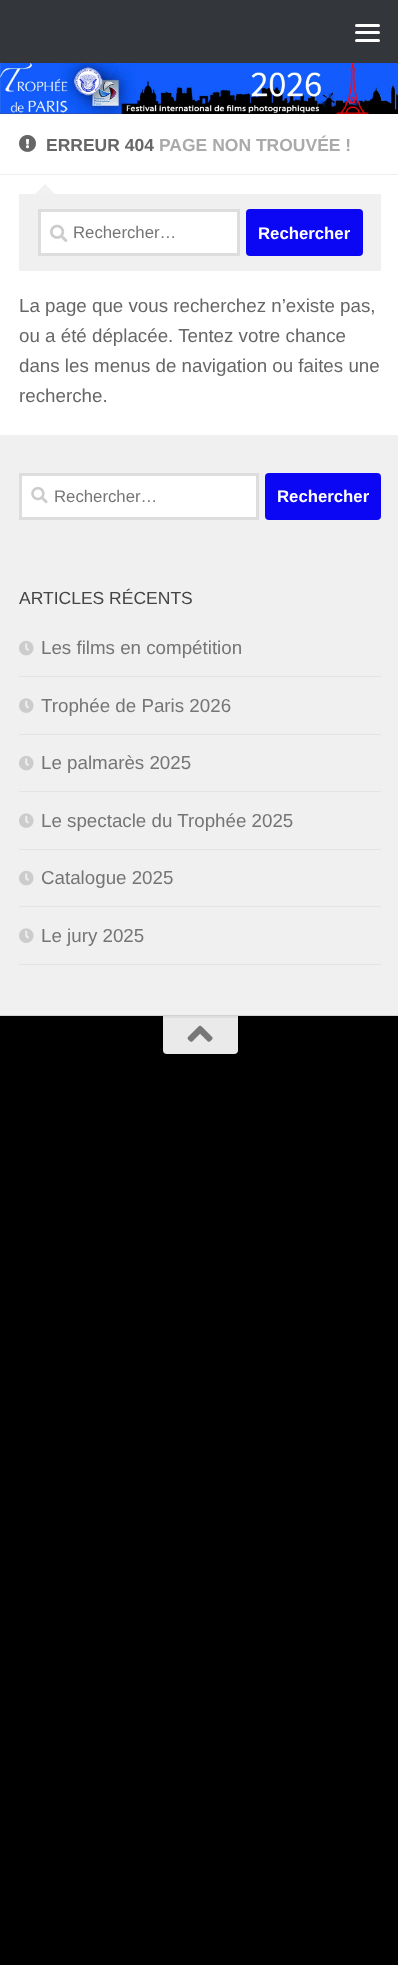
<!DOCTYPE html>
<meta charset="utf-8">
<style>body { margin: 0 } canvas { display: block }</style>
<canvas id="canvas" width="398" height="1965"></canvas>
<script type="module">
  const canvas = document.getElementById("canvas");
  const ctx = canvas.getContext("2d");
  ctx.miterLimit = 4;
  ctx.fontKerning = "normal";
  async function loadImage(src) {
    const img = new Image();
    img.src = src;
    await img.decode();
    return img;
  }

  ctx.fillStyle = "#000000";
  ctx.fillRect(0, 0, 398, 1965);
  ctx.fillStyle = "#33363b";
  ctx.fillRect(0, 0, 398, 63);
  ctx.fillStyle = "#ffffff";
  ctx.beginPath();
  ctx.roundRect(355, 24, 25, 3, 1.5);
  ctx.fill();
  ctx.beginPath();
  ctx.roundRect(355, 31, 25, 3, 1.5);
  ctx.fill();
  ctx.beginPath();
  ctx.roundRect(355, 39, 25, 3, 1.5);
  ctx.fill();
  ctx.fillStyle = "#eaeaea";
  ctx.fillRect(0, 1015, 398, 1);
  ctx.fillStyle = "rgba(0, 0, 0, 0.1)";
  ctx.filter = "blur(0.5px)";
  ctx.beginPath();
  ctx.rect(0, 115, 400, 901);
  ctx.fill();
  ctx.filter = "none";
  ctx.drawImage(await loadImage("img1.png"), 0, 63, 398, 51);
  ctx.fillStyle = "#ffffff";
  ctx.fillRect(0, 114, 398, 321);
  ctx.fillStyle = "#eeeeee";
  ctx.fillRect(0, 174, 398, 1);
  ctx.drawImage(await loadImage("img2.png"), 19, 135, 17, 17);
  ctx.font = "bold 17.5px Liberation Sans";
  ctx.fillStyle = "#666666";
  ctx.fillText("ERREUR 404", 46, 151);
  ctx.fillStyle = "#aaaaaa";
  ctx.fillText("PAGE NON TROUVÉE !", 159, 151);
  ctx.fillStyle = "#f0f0f0";
  ctx.fillRect(19, 194, 362, 77);
  ctx.fillStyle = "#f1f1f1";
  ctx.beginPath();
  ctx.moveTo(55, 194);
  ctx.lineTo(35, 194);
  ctx.lineTo(45, 184);
  ctx.closePath();
  ctx.fill();
  ctx.fillStyle = "#ffffff";
  ctx.beginPath();
  ctx.rect(39.5, 210.5, 199, 44);
  ctx.fill();
  ctx.strokeStyle = "#dddddd";
  ctx.lineWidth = 3;
  ctx.stroke();
  ctx.drawImage(await loadImage("img3.png"), 50, 224, 18, 18);
  ctx.font = "16.75px Liberation Sans";
  ctx.fillStyle = "#757575";
  ctx.fillText("Rechercher…", 73, 238);
  ctx.fillStyle = "#0b07f4";
  ctx.beginPath();
  ctx.roundRect(246, 209, 117, 47, 4);
  ctx.fill();
  ctx.font = "bold 16.75px Liberation Sans";
  ctx.fillStyle = "#ffffff";
  ctx.fillText("Rechercher", 258, 239);
  ctx.font = "18.75px Liberation Sans";
  ctx.fillStyle = "#666666";
  ctx.fillText("La page que vous recherchez n’existe pas,", 19, 312);
  ctx.fillText("ou a été déplacée. Tentez votre chance", 19, 342);
  ctx.fillText("dans les menus de navigation ou faites une", 19, 372);
  ctx.fillText("recherche.", 19, 402);
  ctx.fillStyle = "#f0f0f0";
  ctx.fillRect(0, 435, 398, 580);
  ctx.fillStyle = "#ffffff";
  ctx.beginPath();
  ctx.rect(20.5, 474.5, 237, 44);
  ctx.fill();
  ctx.stroke();
  ctx.drawImage(await loadImage("img4.png"), 31, 487, 17, 17);
  ctx.font = "16.75px Liberation Sans";
  ctx.fillStyle = "#757575";
  ctx.fillText("Rechercher…", 54, 502);
  ctx.fillStyle = "#0b07f4";
  ctx.beginPath();
  ctx.roundRect(265, 473, 116, 47, 4);
  ctx.fill();
  ctx.font = "bold 16.75px Liberation Sans";
  ctx.fillStyle = "#ffffff";
  ctx.fillText("Rechercher", 277, 502);
  ctx.font = "17.5px Liberation Sans";
  ctx.fillStyle = "#444444";
  ctx.fillText("ARTICLES RÉCENTS", 19, 604);
  ctx.fillStyle = "#e4e4e4";
  ctx.fillRect(19, 676, 362, 1);
  ctx.drawImage(await loadImage("img5.png"), 19, 640, 15, 16);
  ctx.font = "18.75px Liberation Sans";
  ctx.fillStyle = "#757575";
  ctx.fillText("Les films en compétition", 41, 654);
  ctx.fillStyle = "#e4e4e4";
  ctx.fillRect(19, 734, 362, 1);
  ctx.drawImage(await loadImage("img6.png"), 19, 698, 15, 15);
  ctx.fillStyle = "#757575";
  ctx.fillText("Trophée de Paris 2026", 41, 712);
  ctx.fillStyle = "#e4e4e4";
  ctx.fillRect(19, 791, 362, 1);
  ctx.drawImage(await loadImage("img5.png"), 19, 755, 15, 16);
  ctx.fillStyle = "#757575";
  ctx.fillText("Le palmarès 2025", 41, 769);
  ctx.fillStyle = "#e4e4e4";
  ctx.fillRect(19, 849, 362, 1);
  ctx.drawImage(await loadImage("img6.png"), 19, 813, 15, 15);
  ctx.fillStyle = "#757575";
  ctx.fillText("Le spectacle du Trophée 2025", 41, 827);
  ctx.fillStyle = "#e4e4e4";
  ctx.fillRect(19, 906, 362, 1);
  ctx.drawImage(await loadImage("img5.png"), 19, 870, 15, 16);
  ctx.fillStyle = "#757575";
  ctx.fillText("Catalogue 2025", 41, 884);
  ctx.fillStyle = "#e4e4e4";
  ctx.fillRect(19, 964, 362, 1);
  ctx.drawImage(await loadImage("img6.png"), 19, 928, 15, 15);
  ctx.fillStyle = "#757575";
  ctx.fillText("Le jury 2025", 41, 942);
  ctx.fillStyle = "#eaeaea";
  ctx.beginPath();
  ctx.roundRect(163, 1016, 75, 38, [0, 0, 4, 4]);
  ctx.fill();
  ctx.fillStyle = "#dedede";
  ctx.fillRect(163, 1016, 75, 2);
  ctx.drawImage(await loadImage("img7.png"), 187, 1025, 26, 17);
</script>
